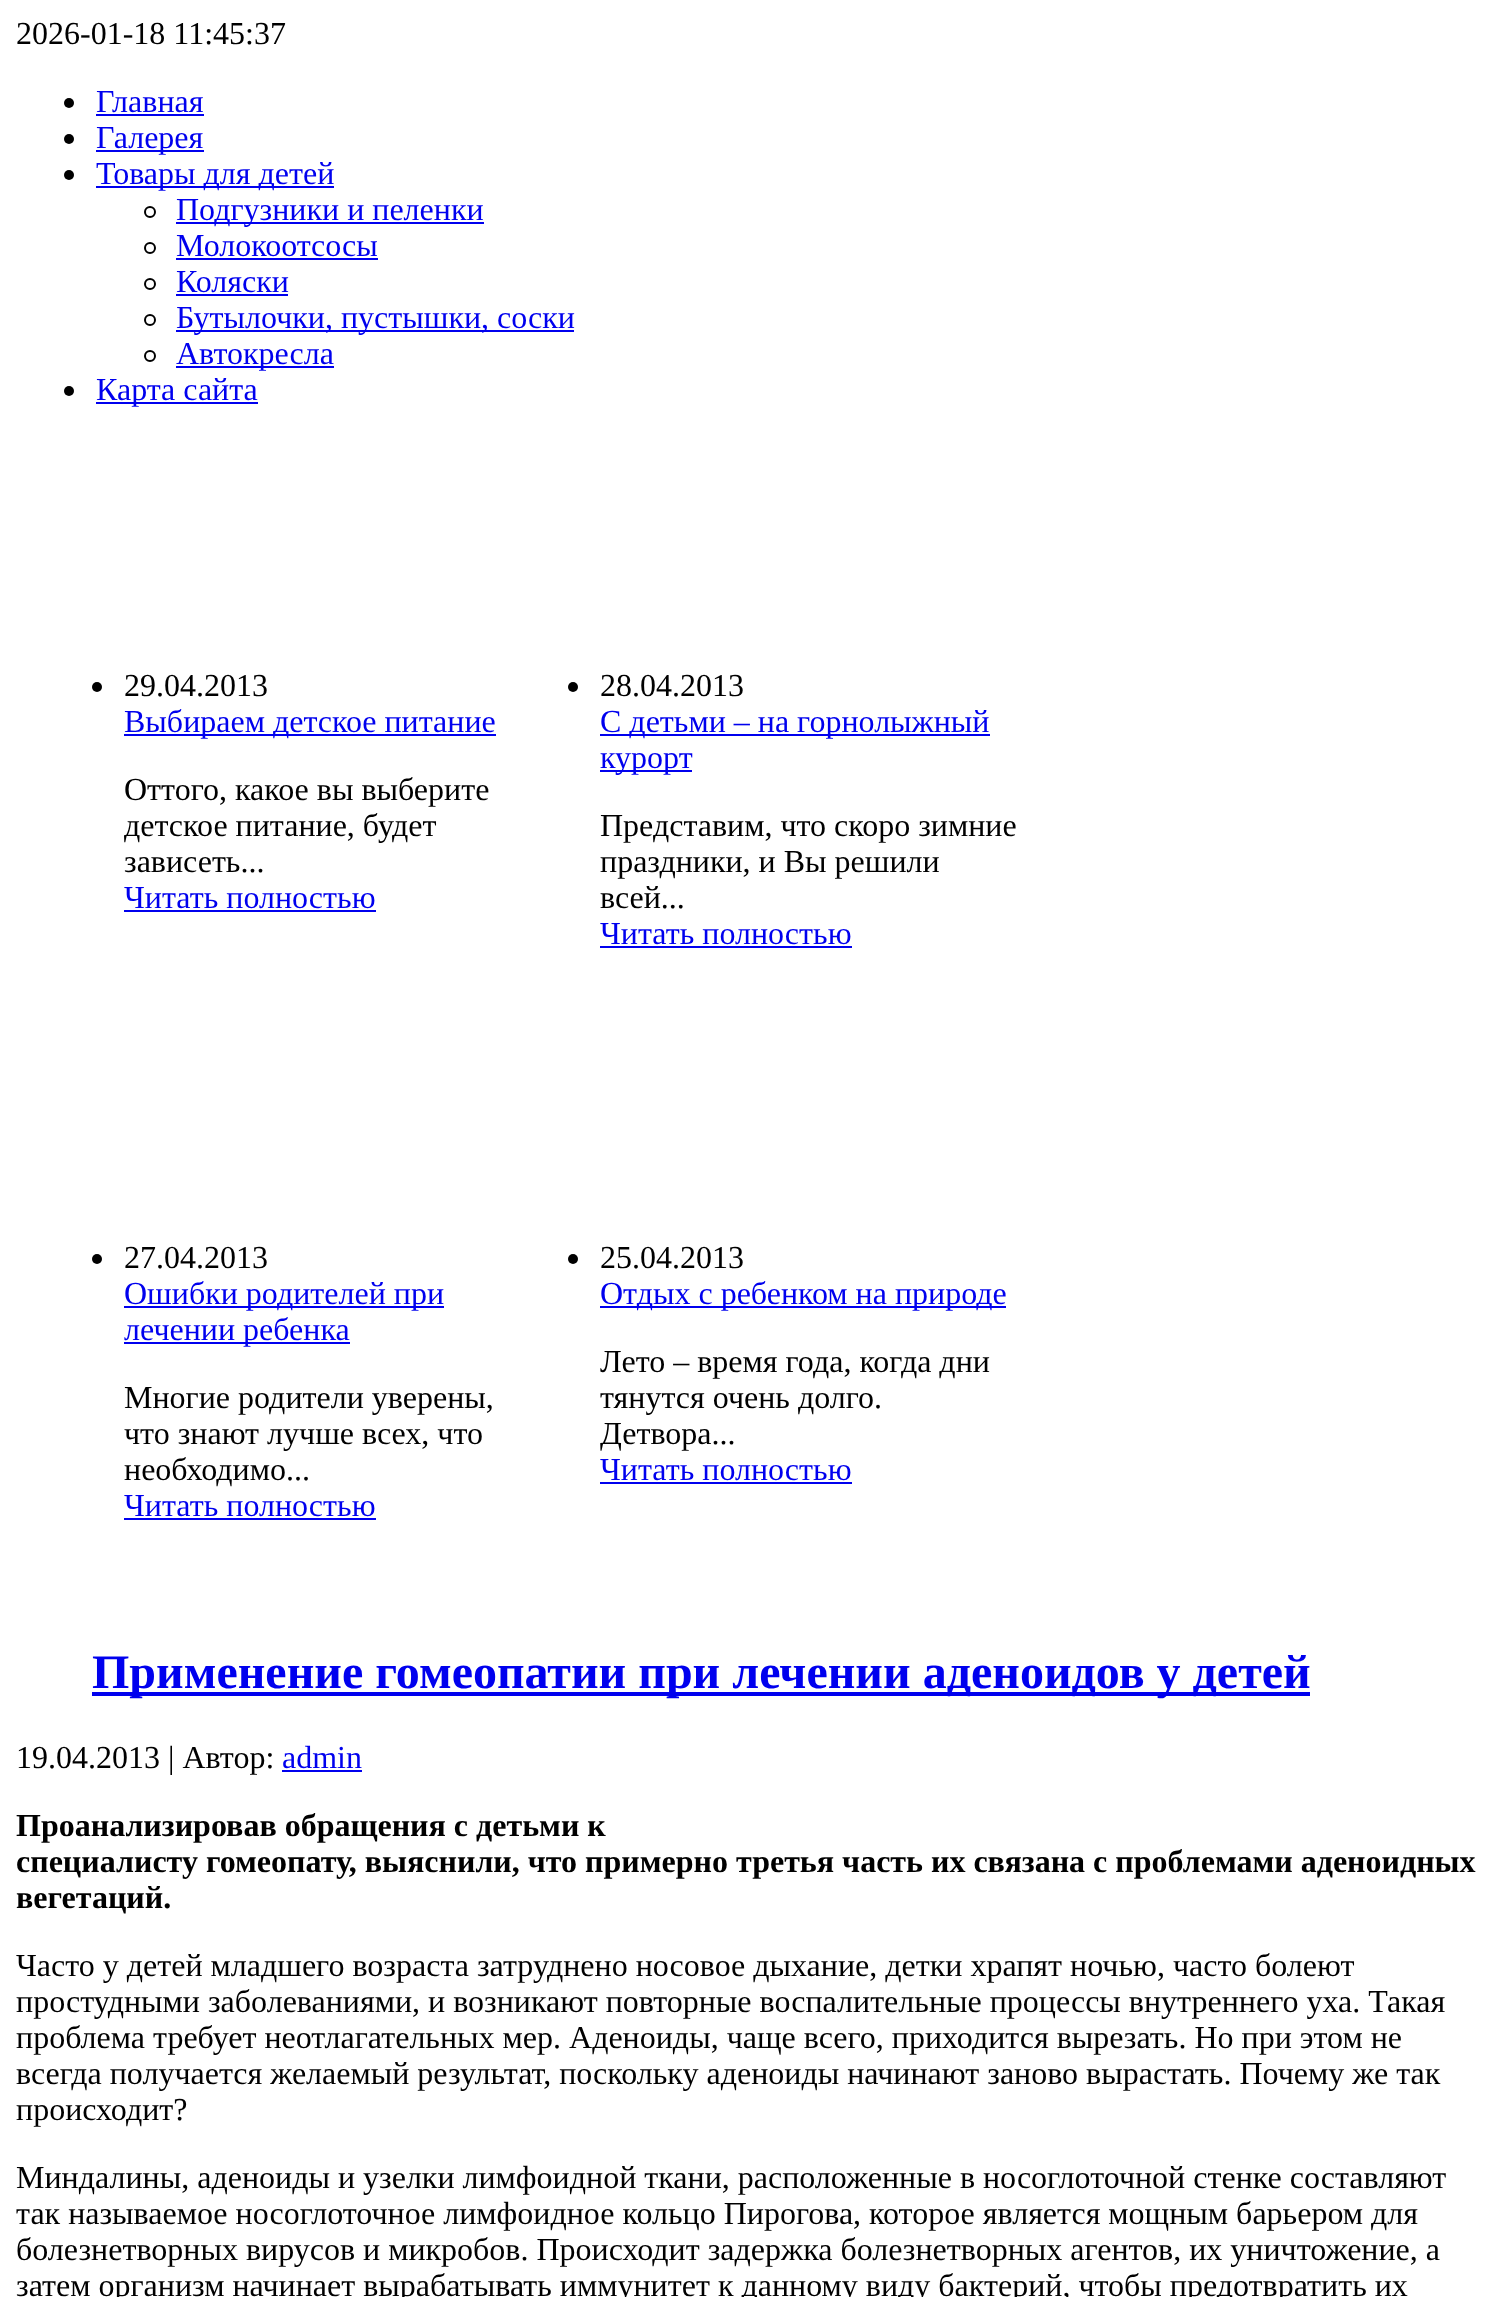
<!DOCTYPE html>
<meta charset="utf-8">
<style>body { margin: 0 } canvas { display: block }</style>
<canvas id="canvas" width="1499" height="2297"></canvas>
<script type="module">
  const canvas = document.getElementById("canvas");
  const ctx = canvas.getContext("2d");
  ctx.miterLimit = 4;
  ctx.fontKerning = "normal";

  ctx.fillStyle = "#ffffff";
  ctx.fillRect(0, 0, 1499, 2297);
  ctx.font = "32px Liberation Serif";
  ctx.fillStyle = "#000000";
  ctx.fillText("2026-01-18 11:45:37", 16, 44);
  ctx.beginPath();
  ctx.arc(69, 103, 5, 0, Math.PI * 2);
  ctx.fill();
  ctx.fillStyle = "#0000ee";
  ctx.fillText("Главная", 96, 112);
  ctx.fillRect(96, 114, 108, 2);
  ctx.fillStyle = "#000000";
  ctx.beginPath();
  ctx.arc(69, 139, 5, 0, Math.PI * 2);
  ctx.fill();
  ctx.fillStyle = "#0000ee";
  ctx.fillRect(96, 150, 108, 2);
  ctx.fillText("Галерея", 96, 148);
  ctx.fillStyle = "#000000";
  ctx.beginPath();
  ctx.arc(69, 175, 5, 0, Math.PI * 2);
  ctx.fill();
  ctx.fillStyle = "#0000ee";
  ctx.fillRect(96, 186, 238, 2);
  ctx.fillText("Товары для детей", 96, 184);
  ctx.beginPath();
  ctx.arc(150, 212, 5, 0, Math.PI * 2);
  ctx.strokeStyle = "#000000";
  ctx.lineWidth = 2;
  ctx.stroke();
  ctx.fillRect(176, 222, 308, 2);
  ctx.fillText("Подгузники и пеленки", 176, 220);
  ctx.beginPath();
  ctx.arc(150, 248, 5, 0, Math.PI * 2);
  ctx.stroke();
  ctx.fillText("Молокоотсосы", 176, 256);
  ctx.fillRect(176, 258, 202, 2);
  ctx.beginPath();
  ctx.arc(150, 284, 5, 0, Math.PI * 2);
  ctx.stroke();
  ctx.fillText("Коляски", 176, 292);
  ctx.fillRect(176, 294, 112, 2);
  ctx.beginPath();
  ctx.arc(150, 320, 5, 0, Math.PI * 2);
  ctx.stroke();
  ctx.fillRect(176, 330, 398, 2);
  ctx.fillText("Бутылочки, пустышки, соски", 176, 328);
  ctx.beginPath();
  ctx.arc(150, 356, 5, 0, Math.PI * 2);
  ctx.stroke();
  ctx.fillRect(176, 366, 158, 2);
  ctx.fillText("Автокресла", 176, 364);
  ctx.fillStyle = "#000000";
  ctx.beginPath();
  ctx.arc(69, 391, 5, 0, Math.PI * 2);
  ctx.fill();
  ctx.fillStyle = "#0000ee";
  ctx.fillRect(96, 402, 162, 2);
  ctx.fillText("Карта сайта", 96, 400);
  ctx.fillStyle = "#000000";
  ctx.beginPath();
  ctx.arc(97, 687, 5, 0, Math.PI * 2);
  ctx.fill();
  ctx.fillText("29.04.2013", 124, 696);
  ctx.fillStyle = "#0000ee";
  ctx.fillRect(124, 734, 372, 2);
  ctx.fillText("Выбираем детское питание", 124, 732);
  ctx.fillStyle = "#000000";
  ctx.fillText("Оттого, какое вы выберите", 124, 800);
  ctx.fillText("детское питание, будет", 124, 836);
  ctx.fillText("зависеть...", 124, 872);
  ctx.fillStyle = "#0000ee";
  ctx.fillText("Читать полностью", 124, 908);
  ctx.fillRect(124, 910, 252, 2);
  ctx.fillStyle = "#000000";
  ctx.beginPath();
  ctx.arc(573, 687, 5, 0, Math.PI * 2);
  ctx.fill();
  ctx.fillText("28.04.2013", 600, 696);
  ctx.fillStyle = "#0000ee";
  ctx.fillRect(600, 734, 390, 2);
  ctx.fillText("С детьми – на горнолыжный", 600, 732);
  ctx.fillRect(600, 770, 92, 2);
  ctx.fillText("курорт", 600, 768);
  ctx.fillStyle = "#000000";
  ctx.fillText("Представим, что скоро зимние", 600, 836);
  ctx.fillText("праздники, и Вы решили", 600, 872);
  ctx.fillText("всей...", 600, 908);
  ctx.fillStyle = "#0000ee";
  ctx.fillText("Читать полностью", 600, 944);
  ctx.fillRect(600, 946, 252, 2);
  ctx.fillStyle = "#000000";
  ctx.beginPath();
  ctx.arc(97, 1259, 5, 0, Math.PI * 2);
  ctx.fill();
  ctx.fillText("27.04.2013", 124, 1268);
  ctx.fillStyle = "#0000ee";
  ctx.fillRect(124, 1306, 320, 2);
  ctx.fillText("Ошибки родителей при", 124, 1304);
  ctx.fillRect(124, 1342, 226, 2);
  ctx.fillText("лечении ребенка", 124, 1340);
  ctx.fillStyle = "#000000";
  ctx.fillText("Многие родители уверены,", 124, 1408);
  ctx.fillText("что знают лучше всех, что", 124, 1444);
  ctx.fillText("необходимо...", 124, 1480);
  ctx.fillStyle = "#0000ee";
  ctx.fillText("Читать полностью", 124, 1516);
  ctx.fillRect(124, 1518, 252, 2);
  ctx.fillStyle = "#000000";
  ctx.beginPath();
  ctx.arc(573, 1259, 5, 0, Math.PI * 2);
  ctx.fill();
  ctx.fillText("25.04.2013", 600, 1268);
  ctx.fillStyle = "#0000ee";
  ctx.fillRect(600, 1306, 406, 2);
  ctx.fillText("Отдых с ребенком на природе", 600, 1304);
  ctx.fillStyle = "#000000";
  ctx.fillText("Лето – время года, когда дни", 600, 1372);
  ctx.fillText("тянутся очень долго.", 600, 1408);
  ctx.fillText("Детвора...", 600, 1444);
  ctx.fillStyle = "#0000ee";
  ctx.fillText("Читать полностью", 600, 1480);
  ctx.fillRect(600, 1482, 252, 2);
  ctx.fillRect(92, 1692, 1218, 4);
  ctx.font = "bold 48px Liberation Serif";
  ctx.fillText("Применение гомеопатии при лечении аденоидов у детей", 92, 1688);
  ctx.font = "32px Liberation Serif";
  ctx.fillStyle = "#000000";
  ctx.fillText("19.04.2013 | Автор:", 16, 1768);
  ctx.fillStyle = "#0000ee";
  ctx.fillText("admin", 282, 1768);
  ctx.fillRect(282, 1770, 80, 2);
  ctx.font = "bold 32px Liberation Serif";
  ctx.fillStyle = "#000000";
  ctx.fillText("Проанализировав обращения с детьми к", 16, 1836);
  ctx.fillText("специалисту гомеопату, выяснили, что примерно третья часть их связана с проблемами аденоидных", 16, 1872);
  ctx.fillText("вегетаций.", 16, 1908);
  ctx.font = "32px Liberation Serif";
  ctx.fillText("Часто у детей младшего возраста затруднено носовое дыхание, детки храпят ночью, часто болеют", 16, 1976);
  ctx.fillText("простудными заболеваниями, и возникают повторные воспалительные процессы внутреннего уха. Такая", 16, 2012);
  ctx.fillText("проблема требует неотлагательных мер. Аденоиды, чаще всего, приходится вырезать. Но при этом не", 16, 2048);
  ctx.fillText("всегда получается желаемый результат, поскольку аденоиды начинают заново вырастать. Почему же так", 16, 2084);
  ctx.fillText("происходит?", 16, 2120);
  ctx.fillText("Миндалины, аденоиды и узелки лимфоидной ткани, расположенные в носоглоточной стенке составляют", 16, 2188);
  ctx.fillText("так называемое носоглоточное лимфоидное кольцо Пирогова, которое является мощным барьером для", 16, 2224);
  ctx.fillText("болезнетворных вирусов и микробов. Происходит задержка болезнетворных агентов, их уничтожение, а", 16, 2260);
  ctx.fillText("затем организм начинает вырабатывать иммунитет к данному виду бактерий, чтобы предотвратить их", 16, 2296);
</script>
